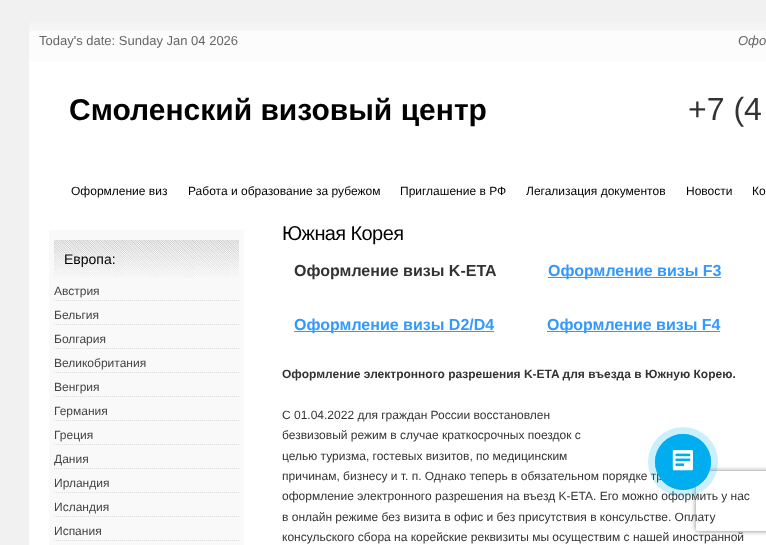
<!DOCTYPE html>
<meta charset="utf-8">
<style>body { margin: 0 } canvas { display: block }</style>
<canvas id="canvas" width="766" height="545"></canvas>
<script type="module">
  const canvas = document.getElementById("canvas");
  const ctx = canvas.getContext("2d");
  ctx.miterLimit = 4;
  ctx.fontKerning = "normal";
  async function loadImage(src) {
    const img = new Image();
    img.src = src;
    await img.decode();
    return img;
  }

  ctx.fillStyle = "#f1f1f1";
  ctx.fillRect(0, 0, 766, 545);
  ctx.fillStyle = "#fcfcfc";
  ctx.fillRect(29, 20, 737, 42);
  ctx.drawImage(await loadImage("img1.png"), 29, 20, 737, 11);
  ctx.font = "13px Liberation Sans";
  ctx.fillStyle = "#666666";
  ctx.fillText("Today's date: Sunday Jan 04 2026", 39, 45);
  ctx.font = "italic 13px Liberation Sans";
  ctx.fillText("Офо", 738, 45);
  ctx.fillStyle = "#ffffff";
  ctx.fillRect(29, 62, 737, 483);
  ctx.font = "bold 30px Liberation Sans";
  ctx.fillStyle = "#000000";
  ctx.fillText("Смоленский визовый центр", 69, 120);
  ctx.font = "32px Liberation Sans";
  ctx.fillStyle = "#333333";
  ctx.fillText("+7 (4", 688, 120);
  ctx.font = "12px Liberation Sans";
  ctx.fillStyle = "#000000";
  ctx.fillText("Оформление виз", 71, 195);
  ctx.fillText("Работа и образование за рубежом", 188, 195);
  ctx.fillText("Приглашение в РФ", 400, 195);
  ctx.fillText("Легализация документов", 526, 195);
  ctx.fillText("Новости", 686, 195);
  ctx.fillText("Ко", 752, 195);
  ctx.fillStyle = "#f9f9f9";
  ctx.fillRect(49, 230, 195, 315);
  ctx.drawImage(await loadImage("img2.png"), 54, 240, 185, 38);
  ctx.font = "14px Liberation Sans";
  ctx.fillStyle = "#000000";
  ctx.fillText("Европа:", 64, 264);
  ctx.beginPath();
  ctx.moveTo(54, 300.5);
  ctx.lineTo(239, 300.5);
  ctx.strokeStyle = "#dddddd";
  ctx.setLineDash([1, 1]);
  ctx.stroke();
  ctx.font = "12px Liberation Sans";
  ctx.fillStyle = "#444444";
  ctx.fillText("Австрия", 54, 295);
  ctx.beginPath();
  ctx.moveTo(54, 324.5);
  ctx.lineTo(239, 324.5);
  ctx.stroke();
  ctx.fillText("Бельгия", 54, 319);
  ctx.beginPath();
  ctx.moveTo(54, 348.5);
  ctx.lineTo(239, 348.5);
  ctx.stroke();
  ctx.fillText("Болгария", 54, 343);
  ctx.beginPath();
  ctx.moveTo(54, 372.5);
  ctx.lineTo(239, 372.5);
  ctx.stroke();
  ctx.fillText("Великобритания", 54, 367);
  ctx.beginPath();
  ctx.moveTo(54, 396.5);
  ctx.lineTo(239, 396.5);
  ctx.stroke();
  ctx.fillText("Венгрия", 54, 391);
  ctx.beginPath();
  ctx.moveTo(54, 420.5);
  ctx.lineTo(239, 420.5);
  ctx.stroke();
  ctx.fillText("Германия", 54, 415);
  ctx.beginPath();
  ctx.moveTo(54, 444.5);
  ctx.lineTo(239, 444.5);
  ctx.stroke();
  ctx.fillText("Греция", 54, 439);
  ctx.beginPath();
  ctx.moveTo(54, 468.5);
  ctx.lineTo(239, 468.5);
  ctx.stroke();
  ctx.fillText("Дания", 54, 463);
  ctx.beginPath();
  ctx.moveTo(54, 492.5);
  ctx.lineTo(239, 492.5);
  ctx.stroke();
  ctx.fillText("Ирландия", 54, 487);
  ctx.beginPath();
  ctx.moveTo(54, 516.5);
  ctx.lineTo(239, 516.5);
  ctx.stroke();
  ctx.fillText("Исландия", 54, 511);
  ctx.beginPath();
  ctx.moveTo(54, 540.5);
  ctx.lineTo(239, 540.5);
  ctx.stroke();
  ctx.fillText("Испания", 54, 535);
  ctx.letterSpacing = "-0.6px";
  ctx.font = "20px Liberation Sans";
  ctx.fillStyle = "#000000";
  ctx.fillText("Южная Корея", 282, 240);
  ctx.letterSpacing = "0px";
  ctx.font = "bold 16px Liberation Sans";
  ctx.fillStyle = "#333333";
  ctx.fillText("Оформление визы K-ETA", 294, 276);
  ctx.fillStyle = "#3399ff";
  ctx.fillRect(548, 277, 173, 1);
  ctx.fillText("Оформление визы F3", 548, 276);
  ctx.fillRect(294, 331, 200, 1);
  ctx.fillText("Оформление визы D2/D4", 294, 330);
  ctx.fillRect(547, 331, 173, 1);
  ctx.fillText("Оформление визы F4", 547, 330);
  ctx.font = "bold 12px Liberation Sans";
  ctx.fillStyle = "#333333";
  ctx.fillText("Оформление электронного разрешения K-ETA для въезда в Южную Корею.", 282, 378);
  ctx.font = "12px Liberation Sans";
  ctx.fillText("С 01.04.2022 для граждан России восстановлен", 282, 419);
  ctx.fillText("безвизовый режим в случае краткосрочных поездок с", 282, 439);
  ctx.fillText("целью туризма, гостевых визитов, по медицинским", 282, 460);
  ctx.fillText("причинам, бизнесу и т. п. Однако теперь в обязательном порядке тр", 282, 480);
  ctx.fillText("оформление электронного разрешения на въезд K-ETA. Его можно оформить у нас", 282, 500);
  ctx.fillText("в онлайн режиме без визита в офис и без присутствия в консульстве. Оплату", 282, 521);
  ctx.fillText("консульского сбора на корейские реквизиты мы осуществим с нашей иностранной", 282, 541);
  ctx.save();
  ctx.beginPath();
  ctx.moveTo(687, 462);
  ctx.lineTo(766, 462);
  ctx.lineTo(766, 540);
  ctx.lineTo(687, 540);
  ctx.closePath();
  ctx.moveTo(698, 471);
  ctx.lineTo(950, 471);
  ctx.bezierCurveTo(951, 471, 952, 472, 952, 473);
  ctx.lineTo(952, 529);
  ctx.bezierCurveTo(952, 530, 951, 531, 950, 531);
  ctx.lineTo(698, 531);
  ctx.bezierCurveTo(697, 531, 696, 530, 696, 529);
  ctx.lineTo(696, 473);
  ctx.bezierCurveTo(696, 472, 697, 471, 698, 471);
  ctx.closePath();
  ctx.clip("evenodd");
  ctx.fillStyle = "#808080";
  ctx.filter = "blur(2.5px)";
  ctx.beginPath();
  ctx.roundRect(696, 471, 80, 60, 2);
  ctx.fill();
  ctx.filter = "none";
  ctx.restore();
  ctx.fillStyle = "rgba(0, 174, 239, 0.2)";
  ctx.beginPath();
  ctx.arc(683, 462, 35, 0, Math.PI * 2);
  ctx.fill();
  ctx.beginPath();
  ctx.arc(683, 462, 27.6, 0, Math.PI * 2);
  ctx.strokeStyle = "#00aeef";
  ctx.lineWidth = 0.8;
  ctx.setLineDash([]);
  ctx.stroke();
  ctx.fillStyle = "#00aeef";
  ctx.beginPath();
  ctx.arc(683, 462, 28, 0, Math.PI * 2);
  ctx.fill();
  ctx.drawImage(await loadImage("img3.png"), 672, 450, 21, 21);
</script>
